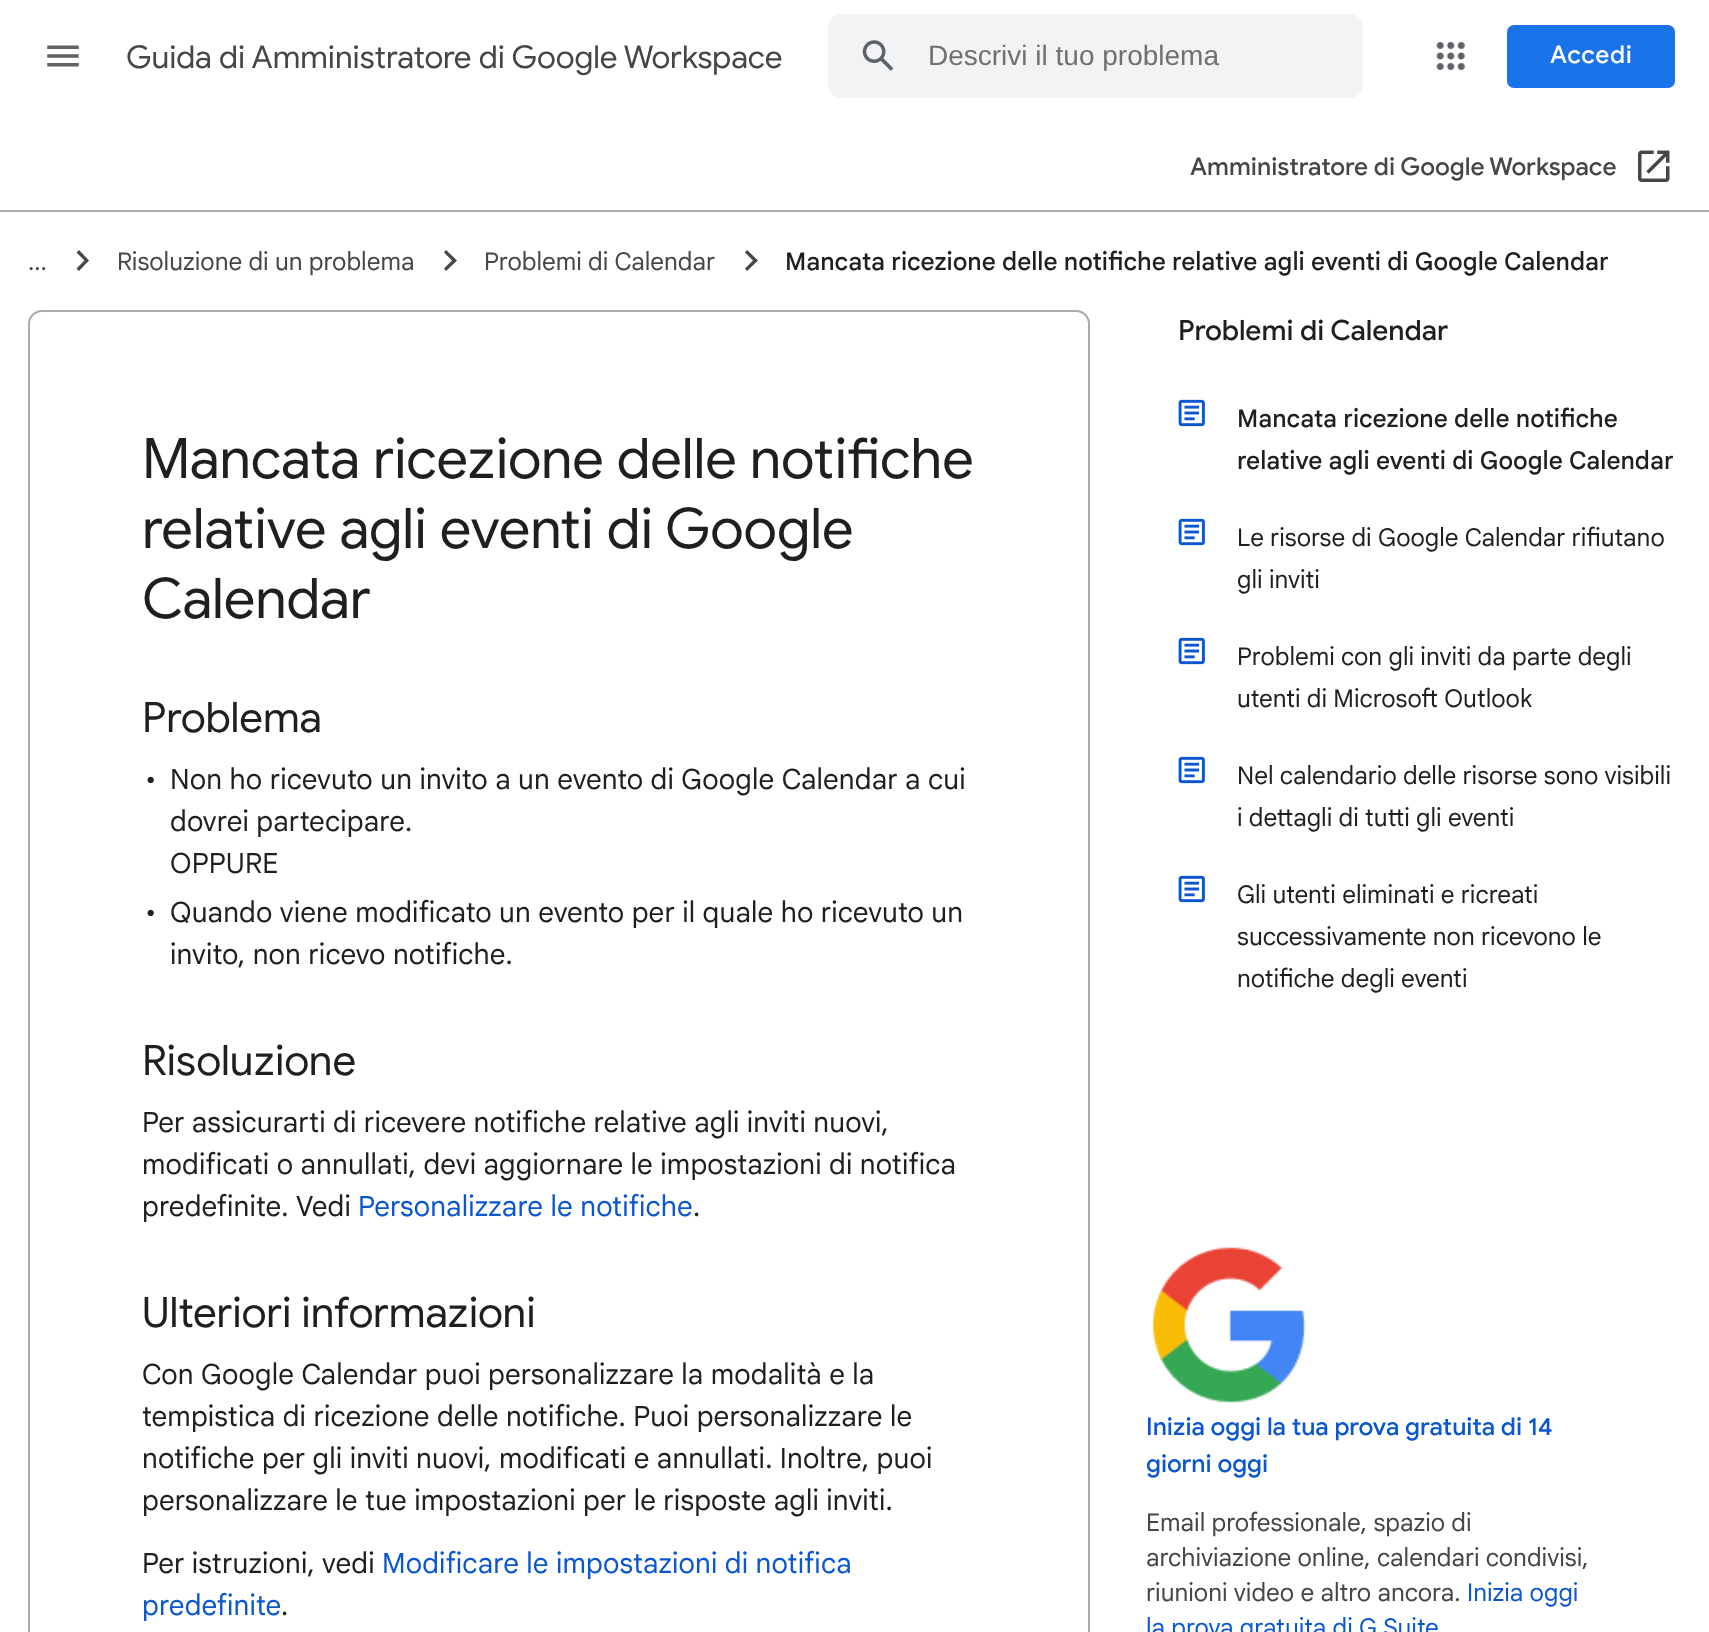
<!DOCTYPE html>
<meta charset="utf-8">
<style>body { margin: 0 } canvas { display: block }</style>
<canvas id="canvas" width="1709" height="1632"></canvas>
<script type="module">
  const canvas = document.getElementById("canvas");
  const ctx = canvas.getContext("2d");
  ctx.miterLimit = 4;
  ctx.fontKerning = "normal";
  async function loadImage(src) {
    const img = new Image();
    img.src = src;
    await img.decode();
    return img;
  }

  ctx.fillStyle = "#ffffff";
  ctx.fillRect(0, 0, 1709, 1632);
  ctx.drawImage(await loadImage("img1.png"), 47, 45, 32, 22);
  ctx.font = "31.5px Google Sans";
  ctx.fillStyle = "#444746";
  ctx.fillText("Guida di Amministratore di Google Workspace", 126, 68);
  ctx.fillStyle = "#f1f3f4";
  ctx.beginPath();
  ctx.roundRect(828, 14, 535, 84, 14);
  ctx.fill();
  ctx.drawImage(await loadImage("img2.png"), 862, 40, 32, 31);
  ctx.font = "28px Liberation Sans";
  ctx.fillStyle = "#6f7070";
  ctx.fillText("Descrivi il tuo problema", 928, 65);
  ctx.drawImage(await loadImage("img3.png"), 1436, 42, 29, 28);
  ctx.fillStyle = "#1a73e8";
  ctx.beginPath();
  ctx.roundRect(1507, 25, 168, 63, 7);
  ctx.fill();
  ctx.letterSpacing = "0.5px";
  ctx.font = "500 24.5px Google Sans";
  ctx.fillStyle = "#ffffff";
  ctx.fillText("Accedi", 1550, 63);
  ctx.fillStyle = "#a9acaa";
  ctx.fillRect(0, 210, 1709, 2);
  ctx.letterSpacing = "0px";
  ctx.fillStyle = "#444746";
  ctx.fillText("Amministratore di Google Workspace", 1190, 175);
  ctx.drawImage(await loadImage("img4.png"), 1638, 150, 32, 32);
  ctx.font = "24.5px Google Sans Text";
  ctx.fillText("...", 28, 270);
  ctx.beginPath();
  ctx.moveTo(76.5, 268.5);
  ctx.lineTo(84.5, 260.5);
  ctx.lineTo(76.5, 252.5);
  ctx.lineTo(79, 250);
  ctx.lineTo(89, 260.5);
  ctx.lineTo(79, 271);
  ctx.closePath();
  ctx.fill();
  ctx.fillText("Risoluzione di un problema", 117, 270);
  ctx.beginPath();
  ctx.moveTo(444, 268.5);
  ctx.lineTo(452, 260.5);
  ctx.lineTo(444, 252.5);
  ctx.lineTo(446, 250);
  ctx.lineTo(457, 260.5);
  ctx.lineTo(446, 271);
  ctx.closePath();
  ctx.fill();
  ctx.fillText("Problemi di Calendar", 484, 270);
  ctx.beginPath();
  ctx.moveTo(745, 268.5);
  ctx.lineTo(753, 260.5);
  ctx.lineTo(745, 252.5);
  ctx.lineTo(747, 250);
  ctx.lineTo(758, 260.5);
  ctx.lineTo(747, 271);
  ctx.closePath();
  ctx.fill();
  ctx.font = "500 24.5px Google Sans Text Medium";
  ctx.fillStyle = "#1f1f1f";
  ctx.fillText("Mancata ricezione delle notifiche relative agli eventi di Google Calendar", 785, 270);
  ctx.beginPath();
  ctx.roundRect(29, 311, 1060, 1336, 13);
  ctx.strokeStyle = "#a9acaa";
  ctx.lineWidth = 2;
  ctx.stroke();
  ctx.font = "56px Google Sans";
  ctx.fillText("Mancata ricezione delle notifiche", 142, 478);
  ctx.fillText("relative agli eventi di Google", 142, 548);
  ctx.fillText("Calendar", 142, 618);
  ctx.font = "42px Google Sans";
  ctx.fillText("Problema", 142, 732);
  ctx.letterSpacing = "0.15px";
  ctx.font = "28px Google Sans Text";
  ctx.fillText("•", 145, 789);
  ctx.fillText("Non ho ricevuto un invito a un evento di Google Calendar a cui", 170, 789);
  ctx.fillText("dovrei partecipare.", 170, 831);
  ctx.fillText("OPPURE", 170, 873);
  ctx.fillText("•", 145, 922);
  ctx.fillText("Quando viene modificato un evento per il quale ho ricevuto un", 170, 922);
  ctx.fillText("invito, non ricevo notifiche.", 170, 964);
  ctx.letterSpacing = "0px";
  ctx.font = "42px Google Sans";
  ctx.fillText("Risoluzione", 142, 1075);
  ctx.letterSpacing = "0.15px";
  ctx.font = "28px Google Sans Text";
  ctx.fillText("Per assicurarti di ricevere notifiche relative agli inviti nuovi,", 142, 1132);
  ctx.fillText("modificati o annullati, devi aggiornare le impostazioni di notifica", 142, 1174);
  ctx.fillText("predefinite. Vedi", 142, 1216);
  ctx.fillStyle = "#0b57d0";
  ctx.fillText("Personalizzare le notifiche", 358, 1216);
  ctx.fillStyle = "#1f1f1f";
  ctx.fillText(".", 693, 1216);
  ctx.letterSpacing = "0px";
  ctx.font = "42px Google Sans";
  ctx.fillText("Ulteriori informazioni", 142, 1327);
  ctx.letterSpacing = "0.15px";
  ctx.font = "28px Google Sans Text";
  ctx.fillText("Con Google Calendar puoi personalizzare la modalità e la", 142, 1384);
  ctx.fillText("tempistica di ricezione delle notifiche. Puoi personalizzare le", 142, 1426);
  ctx.fillText("notifiche per gli inviti nuovi, modificati e annullati. Inoltre, puoi", 142, 1468);
  ctx.fillText("personalizzare le tue impostazioni per le risposte agli inviti.", 142, 1510);
  ctx.fillText("Per istruzioni, vedi", 142, 1573);
  ctx.fillStyle = "#0b57d0";
  ctx.fillText("Modificare le impostazioni di notifica", 382, 1573);
  ctx.fillText("predefinite", 142, 1615);
  ctx.fillStyle = "#1f1f1f";
  ctx.fillText(".", 281, 1615);
  ctx.letterSpacing = "0px";
  ctx.font = "500 28px Google Sans";
  ctx.fillText("Problemi di Calendar", 1178, 340);
  ctx.drawImage(await loadImage("img5.png"), 1178, 399, 27, 28);
  ctx.font = "500 24.5px Google Sans Text Medium";
  ctx.fillText("Mancata ricezione delle notifiche", 1237, 427);
  ctx.fillText("relative agli eventi di Google Calendar", 1237, 469);
  ctx.drawImage(await loadImage("img5.png"), 1178, 518, 27, 28);
  ctx.font = "24.5px Google Sans Text";
  ctx.fillText("Le risorse di Google Calendar rifiutano", 1237, 546);
  ctx.fillText("gli inviti", 1237, 588);
  ctx.drawImage(await loadImage("img5.png"), 1178, 637, 27, 28);
  ctx.fillText("Problemi con gli inviti da parte degli", 1237, 665);
  ctx.fillText("utenti di Microsoft Outlook", 1237, 707);
  ctx.drawImage(await loadImage("img5.png"), 1178, 756, 27, 28);
  ctx.fillText("Nel calendario delle risorse sono visibili", 1237, 784);
  ctx.fillText("i dettagli di tutti gli eventi", 1237, 826);
  ctx.drawImage(await loadImage("img5.png"), 1178, 875, 27, 28);
  ctx.fillText("Gli utenti eliminati e ricreati", 1237, 903);
  ctx.fillText("successivamente non ricevono le", 1237, 945);
  ctx.fillText("notifiche degli eventi", 1237, 987);
  ctx.drawImage(await loadImage("img6.png"), 1152, 1247, 154, 156);
  ctx.font = "500 24.5px Google Sans";
  ctx.fillStyle = "#0b57d0";
  ctx.fillText("Inizia oggi la tua prova gratuita di 14", 1146, 1435);
  ctx.fillText("giorni oggi", 1146, 1472);
  ctx.font = "24.5px Google Sans Text";
  ctx.fillStyle = "#444746";
  ctx.fillText("Email professionale, spazio di", 1146, 1531);
  ctx.fillText("archiviazione online, calendari condivisi,", 1146, 1566);
  ctx.fillText("riunioni video e altro ancora.", 1146, 1601);
  ctx.fillStyle = "#0b57d0";
  ctx.fillText("Inizia oggi", 1467, 1601);
  ctx.fillText("la prova gratuita di G Suite", 1146, 1636);
</script>
